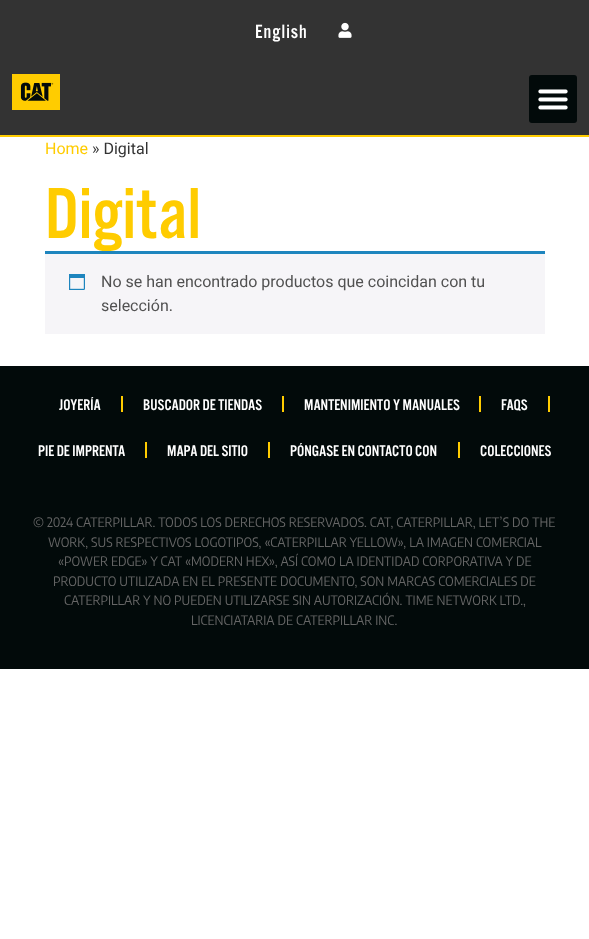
<!DOCTYPE html>
<meta charset="utf-8">
<style>body { margin: 0 } canvas { display: block }</style>
<canvas id="canvas" width="589" height="939"></canvas>
<script type="module">
  const canvas = document.getElementById("canvas");
  const ctx = canvas.getContext("2d");
  ctx.miterLimit = 4;
  ctx.fontKerning = "normal";
  async function loadImage(src) {
    const img = new Image();
    img.src = src;
    await img.decode();
    return img;
  }

  ctx.fillStyle = "#ffffff";
  ctx.fillRect(0, 0, 589, 939);
  ctx.fillStyle = "#333333";
  ctx.fillRect(0, 0, 589, 135);
  ctx.fillStyle = "#ffcc00";
  ctx.fillRect(0, 135, 589, 2);
  ctx.letterSpacing = "1px";
  ctx.font = "20px 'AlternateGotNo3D'";
  ctx.fillStyle = "#ffffff";
  ctx.fillText("English", 255, 38);
  ctx.drawImage(await loadImage("img1.png"), 338, 22, 14, 16);
  ctx.drawImage(await loadImage("img2.png"), 12, 74, 48, 36);
  ctx.fillStyle = "#020a0a";
  ctx.beginPath();
  ctx.roundRect(529, 75, 48, 48, 3);
  ctx.fill();
  ctx.drawImage(await loadImage("img3.png"), 538, 89, 30, 21);
  ctx.letterSpacing = "0px";
  ctx.font = "16px Roboto";
  ctx.fillStyle = "#ffcc00";
  ctx.fillText("Home", 45, 154);
  ctx.fillStyle = "#333333";
  ctx.fillText("» Digital", 92, 154);
  ctx.font = "75px 'AlternateGotNo3D'";
  ctx.fillStyle = "#ffcc00";
  ctx.fillText("Digital", 45, 238);
  ctx.fillStyle = "#f6f5f8";
  ctx.fillRect(45, 254, 500, 80);
  ctx.fillStyle = "#1e85be";
  ctx.fillRect(45, 251, 500, 3);
  ctx.drawImage(await loadImage("img4.png"), 69, 274, 16, 16);
  ctx.font = "16px Roboto";
  ctx.fillStyle = "#515151";
  ctx.fillText("No se han encontrado productos que coincidan con tu", 101, 287);
  ctx.fillText("selección.", 101, 311);
  ctx.fillStyle = "#020a0a";
  ctx.fillRect(0, 366, 589, 303);
  ctx.font = "16px 'AlternateGotNo3D'";
  ctx.fillStyle = "#ffffff";
  ctx.fillText("JOYERÍA", 59, 410);
  ctx.fillStyle = "#ffcc00";
  ctx.fillRect(121, 396, 2, 16);
  ctx.fillStyle = "#ffffff";
  ctx.fillText("BUSCADOR DE TIENDAS", 143, 410);
  ctx.fillStyle = "#ffcc00";
  ctx.fillRect(282, 396, 2, 16);
  ctx.fillStyle = "#ffffff";
  ctx.fillText("MANTENIMIENTO Y MANUALES", 304, 410);
  ctx.fillStyle = "#ffcc00";
  ctx.fillRect(479, 396, 2, 16);
  ctx.fillStyle = "#ffffff";
  ctx.fillText("FAQS", 501, 410);
  ctx.fillStyle = "#ffcc00";
  ctx.fillRect(548, 396, 2, 16);
  ctx.fillStyle = "#ffffff";
  ctx.fillText("PIE DE IMPRENTA", 38, 456);
  ctx.fillStyle = "#ffcc00";
  ctx.fillRect(145, 442, 2, 16);
  ctx.fillStyle = "#ffffff";
  ctx.fillText("MAPA DEL SITIO", 167, 456);
  ctx.fillStyle = "#ffcc00";
  ctx.fillRect(268, 442, 2, 16);
  ctx.fillStyle = "#ffffff";
  ctx.fillText("PÓNGASE EN CONTACTO CON", 290, 456);
  ctx.fillStyle = "#ffcc00";
  ctx.fillRect(458, 442, 2, 16);
  ctx.fillStyle = "#ffffff";
  ctx.fillText("COLECCIONES", 480, 456);
  ctx.font = "13px Encode Sans Semi Condensed";
  ctx.fillStyle = "#666666";
  ctx.fillText("© 2024 CATERPILLAR. TODOS LOS DERECHOS RESERVADOS. CAT, CATERPILLAR, LET’S DO THE", 33, 527);
  ctx.fillText("WORK, SUS RESPECTIVOS LOGOTIPOS, «CATERPILLAR YELLOW», LA IMAGEN COMERCIAL", 48, 547);
  ctx.fillText("«POWER EDGE» Y CAT «MODERN HEX», ASÍ COMO LA IDENTIDAD CORPORATIVA Y DE", 58, 566);
  ctx.fillText("PRODUCTO UTILIZADA EN EL PRESENTE DOCUMENTO, SON MARCAS COMERCIALES DE", 53, 586);
  ctx.fillText("CATERPILLAR Y NO PUEDEN UTILIZARSE SIN AUTORIZACIÓN. TIME NETWORK LTD.,", 64, 605);
  ctx.fillText("LICENCIATARIA DE CATERPILLAR INC.", 191, 625);
</script>
